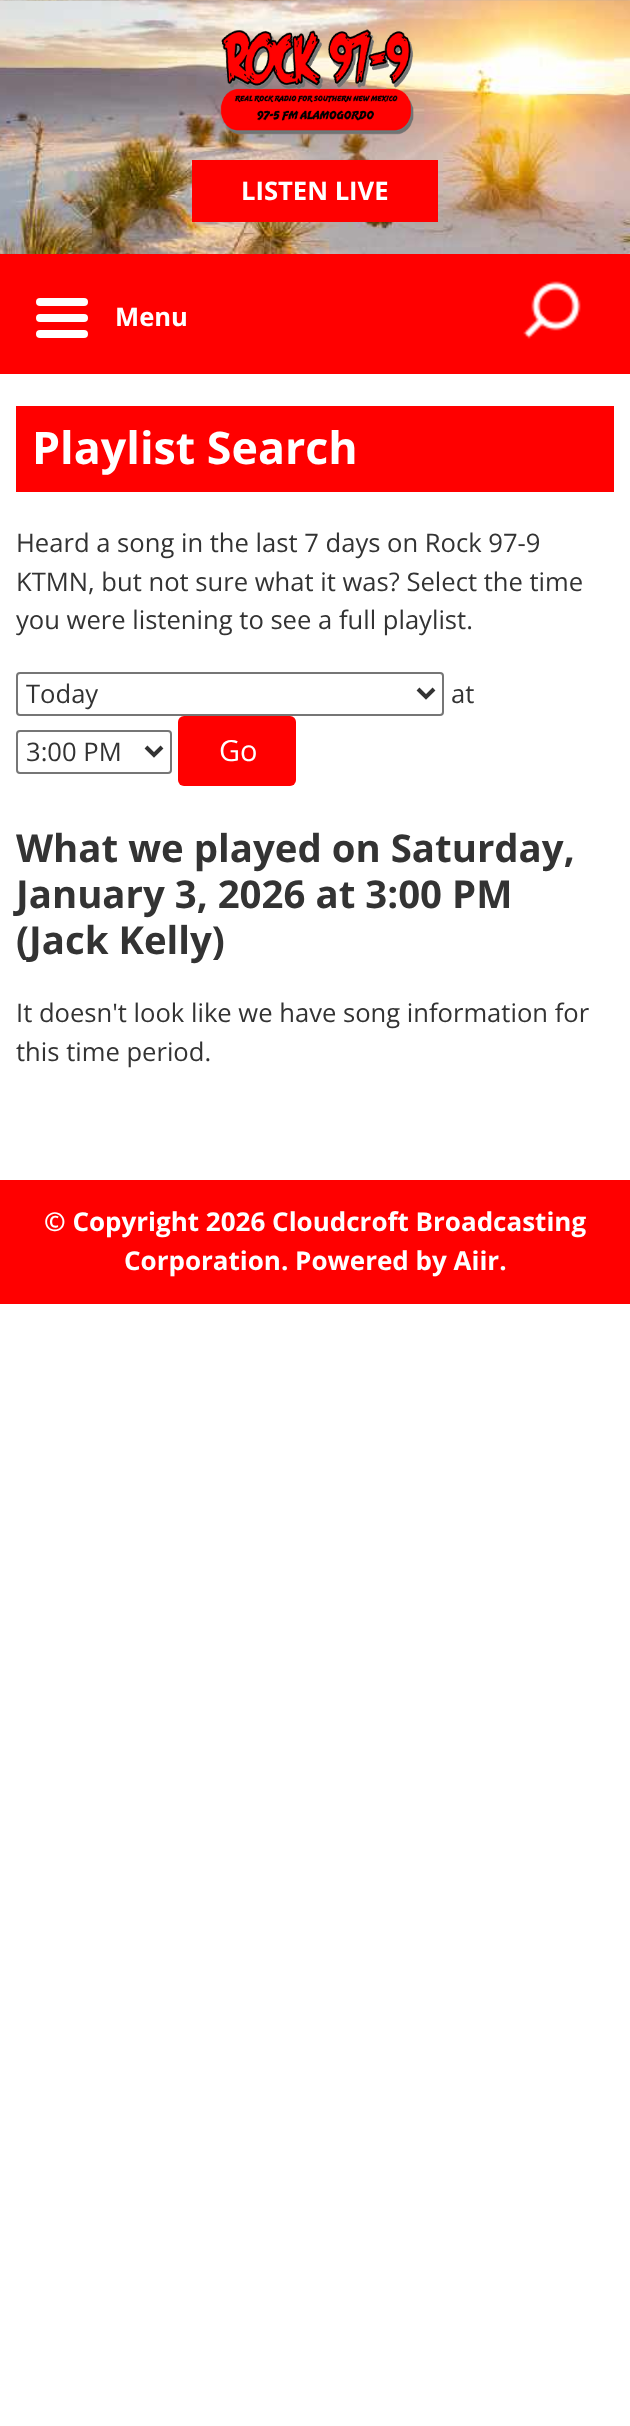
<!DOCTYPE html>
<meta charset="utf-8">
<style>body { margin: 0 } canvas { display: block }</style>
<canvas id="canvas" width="630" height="2426"></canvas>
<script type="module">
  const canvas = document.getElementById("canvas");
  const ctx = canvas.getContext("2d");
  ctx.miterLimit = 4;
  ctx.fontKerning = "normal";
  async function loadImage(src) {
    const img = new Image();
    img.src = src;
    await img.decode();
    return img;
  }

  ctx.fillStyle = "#ffffff";
  ctx.fillRect(0, 0, 630, 2426);
  ctx.drawImage(await loadImage("img1.png"), 0, 0, 630, 254);
  ctx.drawImage(await loadImage("img2.png"), 220, 29, 194, 106);
  ctx.fillStyle = "#ff0000";
  ctx.fillRect(192, 160, 246, 62);
  ctx.font = "bold 25.6px Open Sans";
  ctx.fillStyle = "#ffffff";
  ctx.fillText("LISTEN LIVE", 241, 200);
  ctx.fillStyle = "#ff0000";
  ctx.fillRect(0, 254, 630, 120);
  ctx.fillStyle = "#ffffff";
  ctx.beginPath();
  ctx.roundRect(36, 298, 52, 8, 4);
  ctx.fill();
  ctx.beginPath();
  ctx.roundRect(36, 314, 52, 8, 4);
  ctx.fill();
  ctx.beginPath();
  ctx.roundRect(36, 330, 52, 8, 4);
  ctx.fill();
  ctx.fillText("Menu", 115, 326);
  ctx.drawImage(await loadImage("img3.png"), 523, 281, 58, 58);
  ctx.fillStyle = "#ff0000";
  ctx.fillRect(16, 406, 598, 86);
  ctx.font = "bold 44.75px Open Sans";
  ctx.fillStyle = "#ffffff";
  ctx.fillText("Playlist Search", 32, 464);
  ctx.font = "25.6px Open Sans";
  ctx.fillStyle = "#333333";
  ctx.fillText("Heard a song in the last 7 days on Rock 97-9", 16, 552);
  ctx.fillText("KTMN, but not sure what it was? Select the time", 16, 591);
  ctx.fillText("you were listening to see a full playlist.", 16, 629);
  ctx.beginPath();
  ctx.roundRect(17, 673, 426, 42, 3);
  ctx.strokeStyle = "#767676";
  ctx.lineWidth = 2;
  ctx.stroke();
  ctx.beginPath();
  ctx.moveTo(418, 689);
  ctx.lineTo(426, 697);
  ctx.lineTo(434, 689);
  ctx.strokeStyle = "#333333";
  ctx.lineWidth = 4;
  ctx.stroke();
  ctx.fillText("Today", 26, 703);
  ctx.fillText("at", 451, 703);
  ctx.beginPath();
  ctx.roundRect(17, 731, 154, 42, 3);
  ctx.strokeStyle = "#767676";
  ctx.lineWidth = 2;
  ctx.stroke();
  ctx.beginPath();
  ctx.moveTo(146, 747);
  ctx.lineTo(154, 755);
  ctx.lineTo(162, 747);
  ctx.strokeStyle = "#333333";
  ctx.lineWidth = 4;
  ctx.stroke();
  ctx.fillText("3:00 PM", 26, 761);
  ctx.fillStyle = "#ff0000";
  ctx.beginPath();
  ctx.roundRect(178, 716, 118, 70, 6);
  ctx.fill();
  ctx.font = "29px Open Sans";
  ctx.fillStyle = "#ffffff";
  ctx.fillText("Go", 219, 761);
  ctx.font = "bold 38.4px Open Sans";
  ctx.fillStyle = "#333333";
  ctx.fillText("What we played on Saturday,", 16, 862);
  ctx.fillText("January 3, 2026 at 3:00 PM", 16, 908);
  ctx.fillText("(Jack Kelly)", 16, 954);
  ctx.font = "25.6px Open Sans";
  ctx.fillText("It doesn't look like we have song information for", 16, 1022);
  ctx.fillText("this time period.", 16, 1061);
  ctx.fillStyle = "#ff0000";
  ctx.fillRect(0, 1180, 630, 124);
  ctx.font = "bold 26px Open Sans";
  ctx.fillStyle = "#ffffff";
  ctx.fillText("© Copyright 2026 Cloudcroft Broadcasting", 44, 1231);
  ctx.fillText("Corporation. Powered by Aiir.", 124, 1270);
</script>
